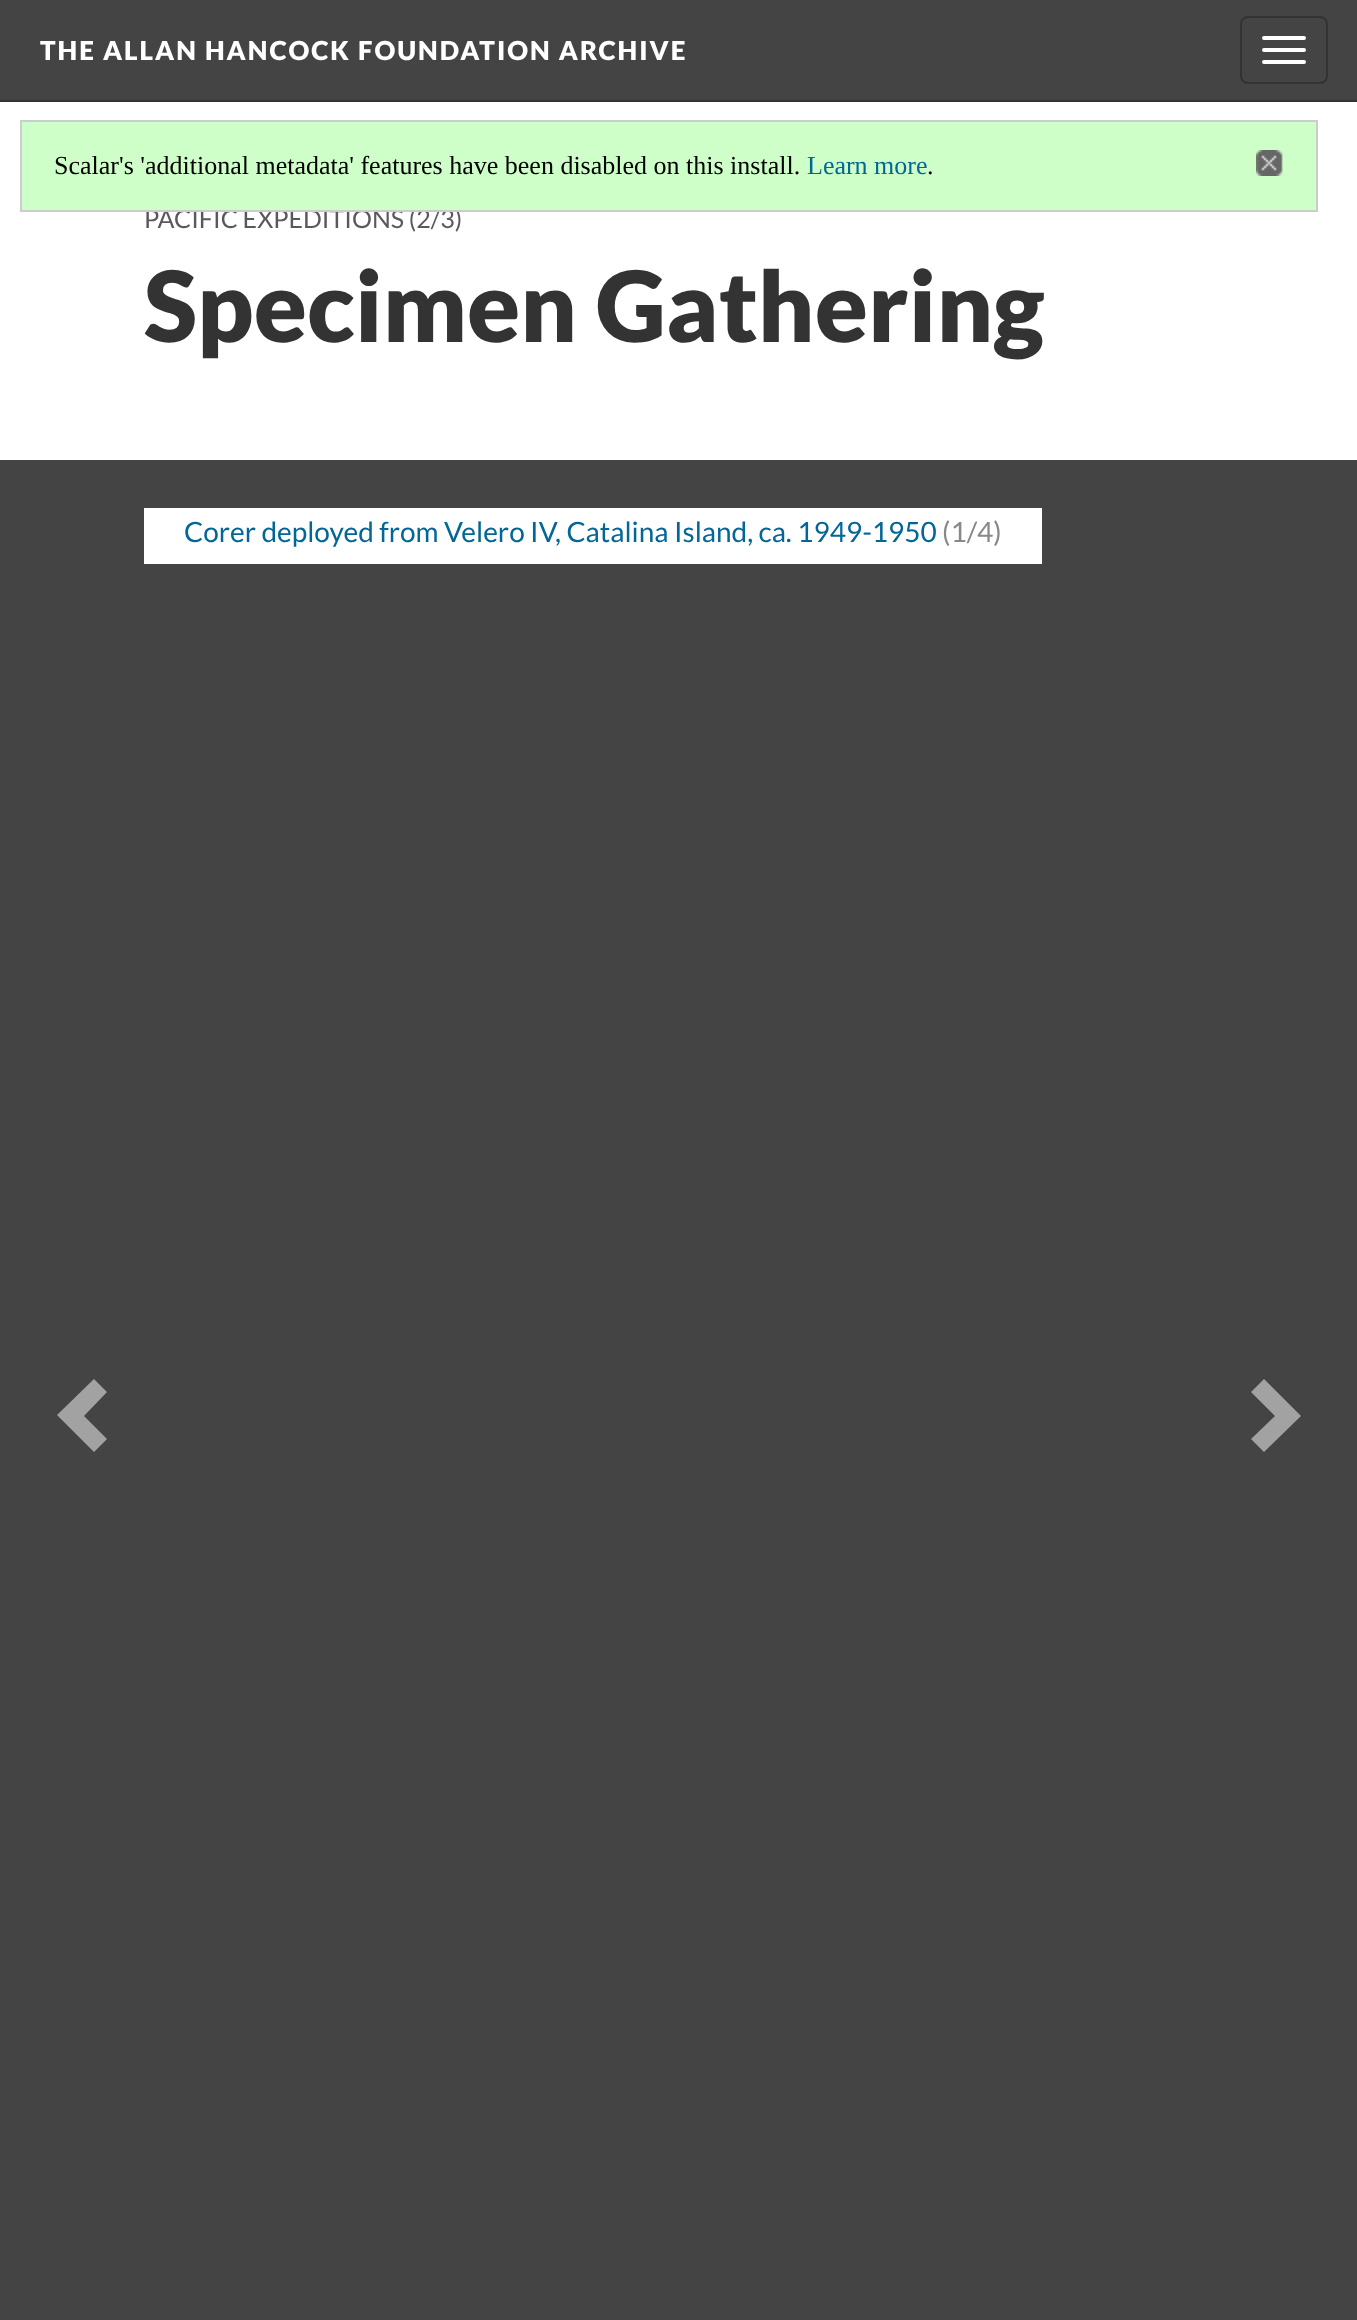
<!DOCTYPE html>
<meta charset="utf-8">
<style>body { margin: 0 } canvas { display: block }</style>
<canvas id="canvas" width="1357" height="2320"></canvas>
<script type="module">
  const canvas = document.getElementById("canvas");
  const ctx = canvas.getContext("2d");
  ctx.miterLimit = 4;
  ctx.fontKerning = "normal";
  async function loadImage(src) {
    const img = new Image();
    img.src = src;
    await img.decode();
    return img;
  }

  ctx.fillStyle = "#ffffff";
  ctx.fillRect(0, 0, 1357, 2320);
  ctx.fillStyle = "#444444";
  ctx.fillRect(0, 0, 1357, 100);
  ctx.fillStyle = "#333333";
  ctx.fillRect(0, 100, 1357, 2);
  ctx.letterSpacing = "2px";
  ctx.font = "900 26px Lato";
  ctx.fillStyle = "#ffffff";
  ctx.fillText("THE ALLAN HANCOCK FOUNDATION ARCHIVE", 40, 60);
  ctx.beginPath();
  ctx.roundRect(1241, 17, 86, 66, 7);
  ctx.strokeStyle = "#333333";
  ctx.lineWidth = 2;
  ctx.stroke();
  ctx.beginPath();
  ctx.roundRect(1262, 36, 44, 4, 2);
  ctx.fill();
  ctx.beginPath();
  ctx.roundRect(1262, 48, 44, 4, 2);
  ctx.fill();
  ctx.beginPath();
  ctx.roundRect(1262, 60, 44, 4, 2);
  ctx.fill();
  ctx.letterSpacing = "0px";
  ctx.font = "25px Lato";
  ctx.fillStyle = "#595959";
  ctx.fillText("PACIFIC EXPEDITIONS (2/3)", 144, 228);
  ctx.fillStyle = "#ceffc8";
  ctx.beginPath();
  ctx.rect(21, 121, 1296, 90);
  ctx.fill();
  ctx.strokeStyle = "#cccccc";
  ctx.stroke();
  ctx.font = "26px Liberation Serif";
  ctx.fillStyle = "#000000";
  ctx.fillText("Scalar's 'additional metadata' features have been disabled on this install.", 54, 174);
  ctx.fillStyle = "#026697";
  ctx.fillText("Learn more", 807, 174);
  ctx.fillStyle = "#000000";
  ctx.fillText(".", 927, 174);
  ctx.drawImage(await loadImage("img1.png"), 1256, 150, 27, 26);
  ctx.font = "900 98px Lato";
  ctx.fillStyle = "#333333";
  ctx.fillText("Specimen Gathering", 144, 342);
  ctx.fillStyle = "#444444";
  ctx.fillRect(0, 460, 1357, 1860);
  ctx.fillStyle = "#ffffff";
  ctx.fillRect(144, 508, 898, 56);
  ctx.font = "28px Lato";
  ctx.fillStyle = "#026697";
  ctx.fillText("Corer deployed from Velero IV, Catalina Island, ca. 1949-1950", 184, 542);
  ctx.fillStyle = "#888888";
  ctx.fillText("(1/4)", 942, 542);
  ctx.fillStyle = "#a2a2a2";
  ctx.beginPath();
  ctx.moveTo(107, 1392);
  ctx.lineTo(84, 1416);
  ctx.lineTo(107, 1439);
  ctx.lineTo(94, 1452);
  ctx.lineTo(57, 1415);
  ctx.lineTo(94, 1379);
  ctx.closePath();
  ctx.fill();
  ctx.beginPath();
  ctx.moveTo(1301, 1416);
  ctx.lineTo(1264, 1452);
  ctx.lineTo(1251, 1439);
  ctx.lineTo(1275, 1416);
  ctx.lineTo(1251, 1392);
  ctx.lineTo(1264, 1379);
  ctx.closePath();
  ctx.fill();
</script>
